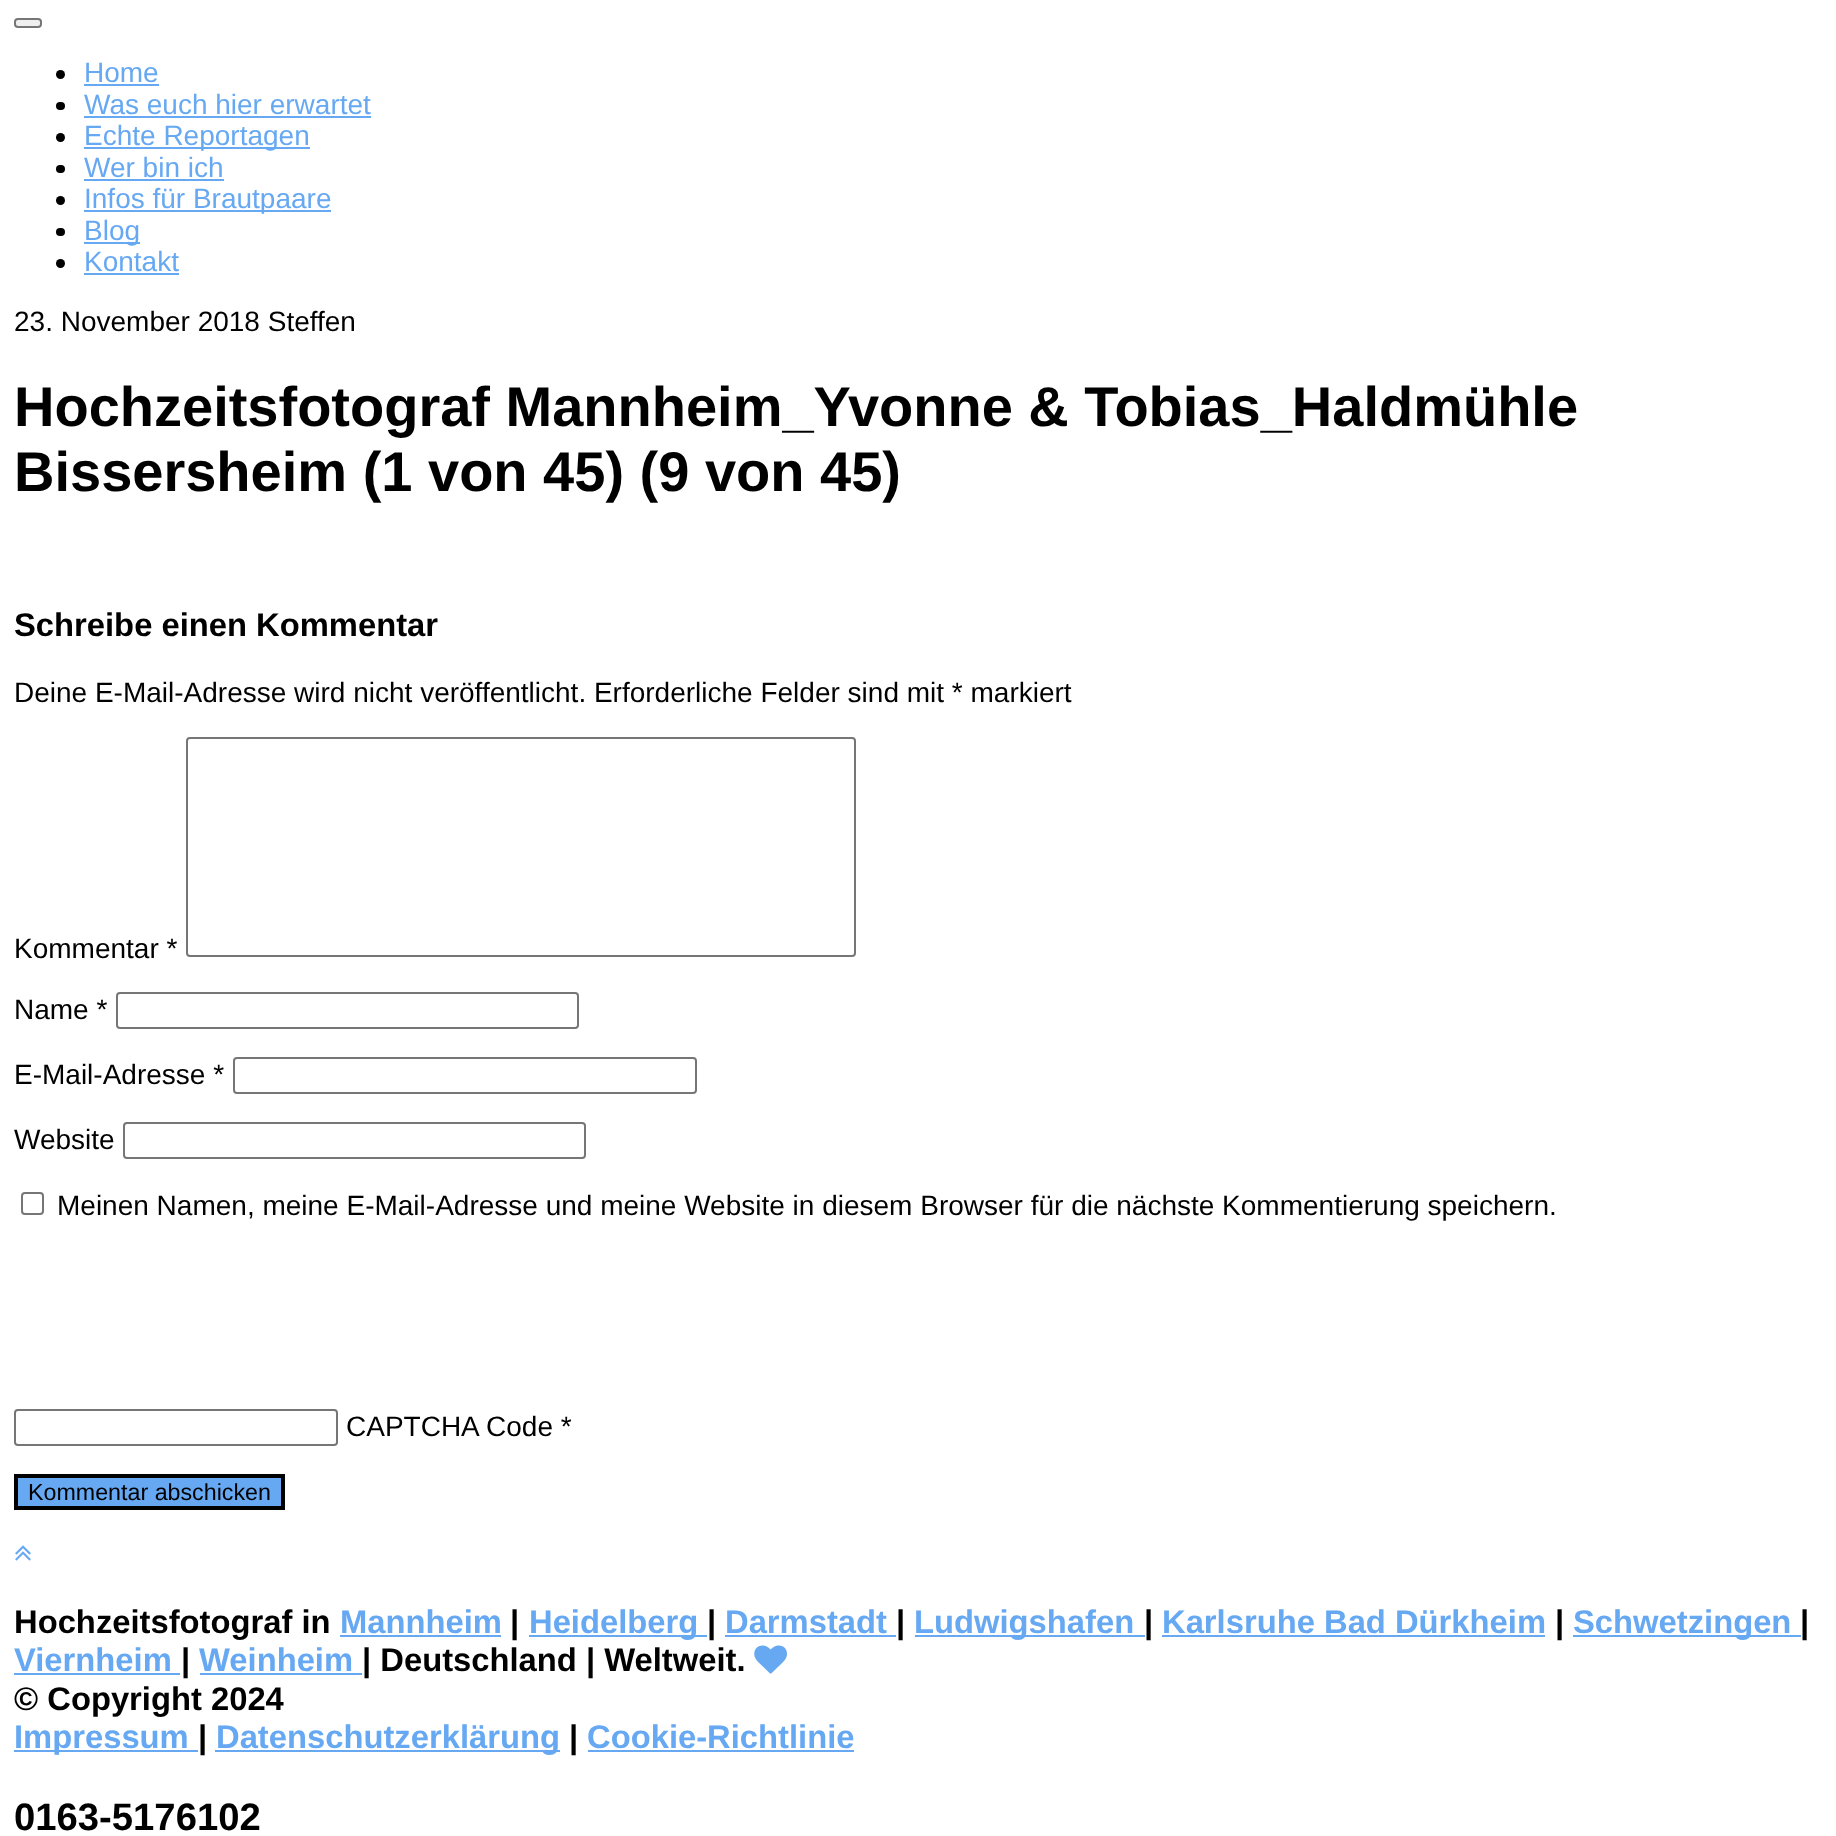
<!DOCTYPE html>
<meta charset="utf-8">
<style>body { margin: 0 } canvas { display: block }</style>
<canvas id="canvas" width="1836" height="1836"></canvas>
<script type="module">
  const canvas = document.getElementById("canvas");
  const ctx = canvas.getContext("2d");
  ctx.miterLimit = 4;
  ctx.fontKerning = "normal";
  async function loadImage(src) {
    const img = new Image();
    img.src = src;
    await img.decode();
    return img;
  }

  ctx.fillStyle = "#ffffff";
  ctx.fillRect(0, 0, 1836, 1836);
  ctx.fillStyle = "#efefef";
  ctx.beginPath();
  ctx.roundRect(15, 19, 26, 8, 3);
  ctx.fill();
  ctx.strokeStyle = "#767676";
  ctx.lineWidth = 2;
  ctx.stroke();
  ctx.fillStyle = "#000000";
  ctx.beginPath();
  ctx.arc(60.5, 74.5, 4.5, 0, Math.PI * 2);
  ctx.fill();
  ctx.font = "28px Liberation Sans";
  ctx.fillStyle = "#66a8f2";
  ctx.fillText("Home", 84, 82);
  ctx.fillRect(84, 84, 75, 2);
  ctx.fillStyle = "#000000";
  ctx.beginPath();
  ctx.roundRect(56, 102, 9, 8, 4);
  ctx.fill();
  ctx.fillStyle = "#66a8f2";
  ctx.fillText("Was euch hier erwartet", 84, 114);
  ctx.fillRect(84, 116, 287, 2);
  ctx.fillStyle = "#000000";
  ctx.beginPath();
  ctx.arc(60.5, 137.5, 4.5, 0, Math.PI * 2);
  ctx.fill();
  ctx.fillStyle = "#66a8f2";
  ctx.fillRect(84, 147, 226, 2);
  ctx.fillText("Echte Reportagen", 84, 145);
  ctx.fillStyle = "#000000";
  ctx.beginPath();
  ctx.roundRect(56, 165, 9, 8, 4);
  ctx.fill();
  ctx.fillStyle = "#66a8f2";
  ctx.fillText("Wer bin ich", 84, 177);
  ctx.fillRect(84, 179, 140, 2);
  ctx.fillStyle = "#000000";
  ctx.beginPath();
  ctx.arc(60.5, 200.5, 4.5, 0, Math.PI * 2);
  ctx.fill();
  ctx.fillStyle = "#66a8f2";
  ctx.fillRect(84, 210, 247, 2);
  ctx.fillText("Infos für Brautpaare", 84, 208);
  ctx.fillStyle = "#000000";
  ctx.beginPath();
  ctx.roundRect(56, 228, 9, 8, 4);
  ctx.fill();
  ctx.fillStyle = "#66a8f2";
  ctx.fillRect(84, 242, 56, 2);
  ctx.fillText("Blog", 84, 240);
  ctx.fillStyle = "#000000";
  ctx.beginPath();
  ctx.arc(60.5, 263.5, 4.5, 0, Math.PI * 2);
  ctx.fill();
  ctx.fillStyle = "#66a8f2";
  ctx.fillText("Kontakt", 84, 271);
  ctx.fillRect(84, 273, 95, 2);
  ctx.fillStyle = "#000000";
  ctx.fillText("23. November 2018 Steffen", 14, 331);
  ctx.font = "bold 56px Liberation Sans";
  ctx.fillText("Hochzeitsfotograf Mannheim_Yvonne & Tobias_Haldmühle", 14, 426);
  ctx.fillText("Bissersheim (1 von 45) (9 von 45)", 14, 491);
  ctx.font = "bold 32.75px Liberation Sans";
  ctx.fillText("Schreibe einen Kommentar", 14, 636);
  ctx.font = "28px Liberation Sans";
  ctx.fillText("Deine E-Mail-Adresse wird nicht veröffentlicht. Erforderliche Felder sind mit * markiert", 14, 702);
  ctx.fillText("Kommentar *", 14, 958);
  ctx.beginPath();
  ctx.roundRect(187, 738, 668, 218, 3);
  ctx.stroke();
  ctx.fillText("Name *", 14, 1019);
  ctx.beginPath();
  ctx.roundRect(117, 993, 461, 35, 3);
  ctx.stroke();
  ctx.fillText("E-Mail-Adresse *", 14, 1084);
  ctx.beginPath();
  ctx.roundRect(234, 1058, 462, 35, 3);
  ctx.stroke();
  ctx.fillText("Website", 14, 1149);
  ctx.beginPath();
  ctx.roundRect(124, 1123, 461, 35, 3);
  ctx.stroke();
  ctx.beginPath();
  ctx.roundRect(22, 1193, 21, 21, 3);
  ctx.stroke();
  ctx.fillText("Meinen Namen, meine E-Mail-Adresse und meine Website in diesem Browser für die nächste Kommentierung speichern.", 57, 1215);
  ctx.beginPath();
  ctx.roundRect(15, 1410, 322, 35, 3);
  ctx.stroke();
  ctx.fillText("CAPTCHA Code *", 346, 1436);
  ctx.fillStyle = "#66a8f2";
  ctx.beginPath();
  ctx.rect(16, 1476, 267, 32);
  ctx.fill();
  ctx.strokeStyle = "#000000";
  ctx.lineWidth = 4;
  ctx.stroke();
  ctx.font = "23.25px Liberation Sans";
  ctx.fillStyle = "#000000";
  ctx.fillText("Kommentar abschicken", 28, 1500);
  ctx.drawImage(await loadImage("img1.png"), 15, 1545, 16, 16);
  ctx.font = "bold 32.75px Liberation Sans";
  ctx.fillText("Hochzeitsfotograf in", 14, 1633);
  ctx.fillStyle = "#66a8f2";
  ctx.fillText("Mannheim", 340, 1633);
  ctx.fillRect(340, 1635, 161, 2);
  ctx.fillStyle = "#000000";
  ctx.fillText("|", 510, 1633);
  ctx.fillStyle = "#66a8f2";
  ctx.fillRect(529, 1635, 178, 2);
  ctx.fillText("Heidelberg", 529, 1633);
  ctx.fillStyle = "#000000";
  ctx.fillText("|", 707, 1633);
  ctx.fillStyle = "#66a8f2";
  ctx.fillText("Darmstadt", 725, 1633);
  ctx.fillRect(725, 1635, 171, 2);
  ctx.fillStyle = "#000000";
  ctx.fillText("|", 896, 1633);
  ctx.fillStyle = "#66a8f2";
  ctx.fillRect(915, 1635, 230, 2);
  ctx.fillText("Ludwigshafen", 914, 1633);
  ctx.fillStyle = "#000000";
  ctx.fillText("|", 1144, 1633);
  ctx.fillStyle = "#66a8f2";
  ctx.fillText("Karlsruhe Bad Dürkheim", 1162, 1633);
  ctx.fillRect(1162, 1635, 383, 2);
  ctx.fillStyle = "#000000";
  ctx.fillText("|", 1555, 1633);
  ctx.fillStyle = "#66a8f2";
  ctx.fillRect(1573, 1635, 228, 2);
  ctx.fillText("Schwetzingen", 1573, 1633);
  ctx.fillStyle = "#000000";
  ctx.fillText("|", 1800, 1633);
  ctx.fillStyle = "#66a8f2";
  ctx.fillText("Viernheim", 14, 1671);
  ctx.fillRect(14, 1673, 166, 2);
  ctx.fillStyle = "#000000";
  ctx.fillText("|", 181, 1671);
  ctx.fillStyle = "#66a8f2";
  ctx.fillText("Weinheim", 199, 1671);
  ctx.fillRect(200, 1673, 162, 2);
  ctx.fillStyle = "#000000";
  ctx.fillText("| Deutschland | Weltweit.", 362, 1671);
  ctx.drawImage(await loadImage("img2.png"), 754, 1645, 33, 29);
  ctx.fillText("© Copyright 2024", 14, 1710);
  ctx.fillStyle = "#66a8f2";
  ctx.fillRect(14, 1750, 184, 2);
  ctx.fillText("Impressum", 14, 1748);
  ctx.fillStyle = "#000000";
  ctx.fillText("|", 198, 1748);
  ctx.fillStyle = "#66a8f2";
  ctx.fillRect(215, 1750, 345, 2);
  ctx.fillText("Datenschutzerklärung", 216, 1748);
  ctx.fillStyle = "#000000";
  ctx.fillText("|", 569, 1748);
  ctx.fillStyle = "#66a8f2";
  ctx.fillText("Cookie-Richtlinie", 587, 1748);
  ctx.fillRect(588, 1750, 266, 2);
  ctx.font = "bold 38.25px Liberation Sans";
  ctx.fillStyle = "#000000";
  ctx.fillText("0163-5176102", 14, 1830);
</script>
